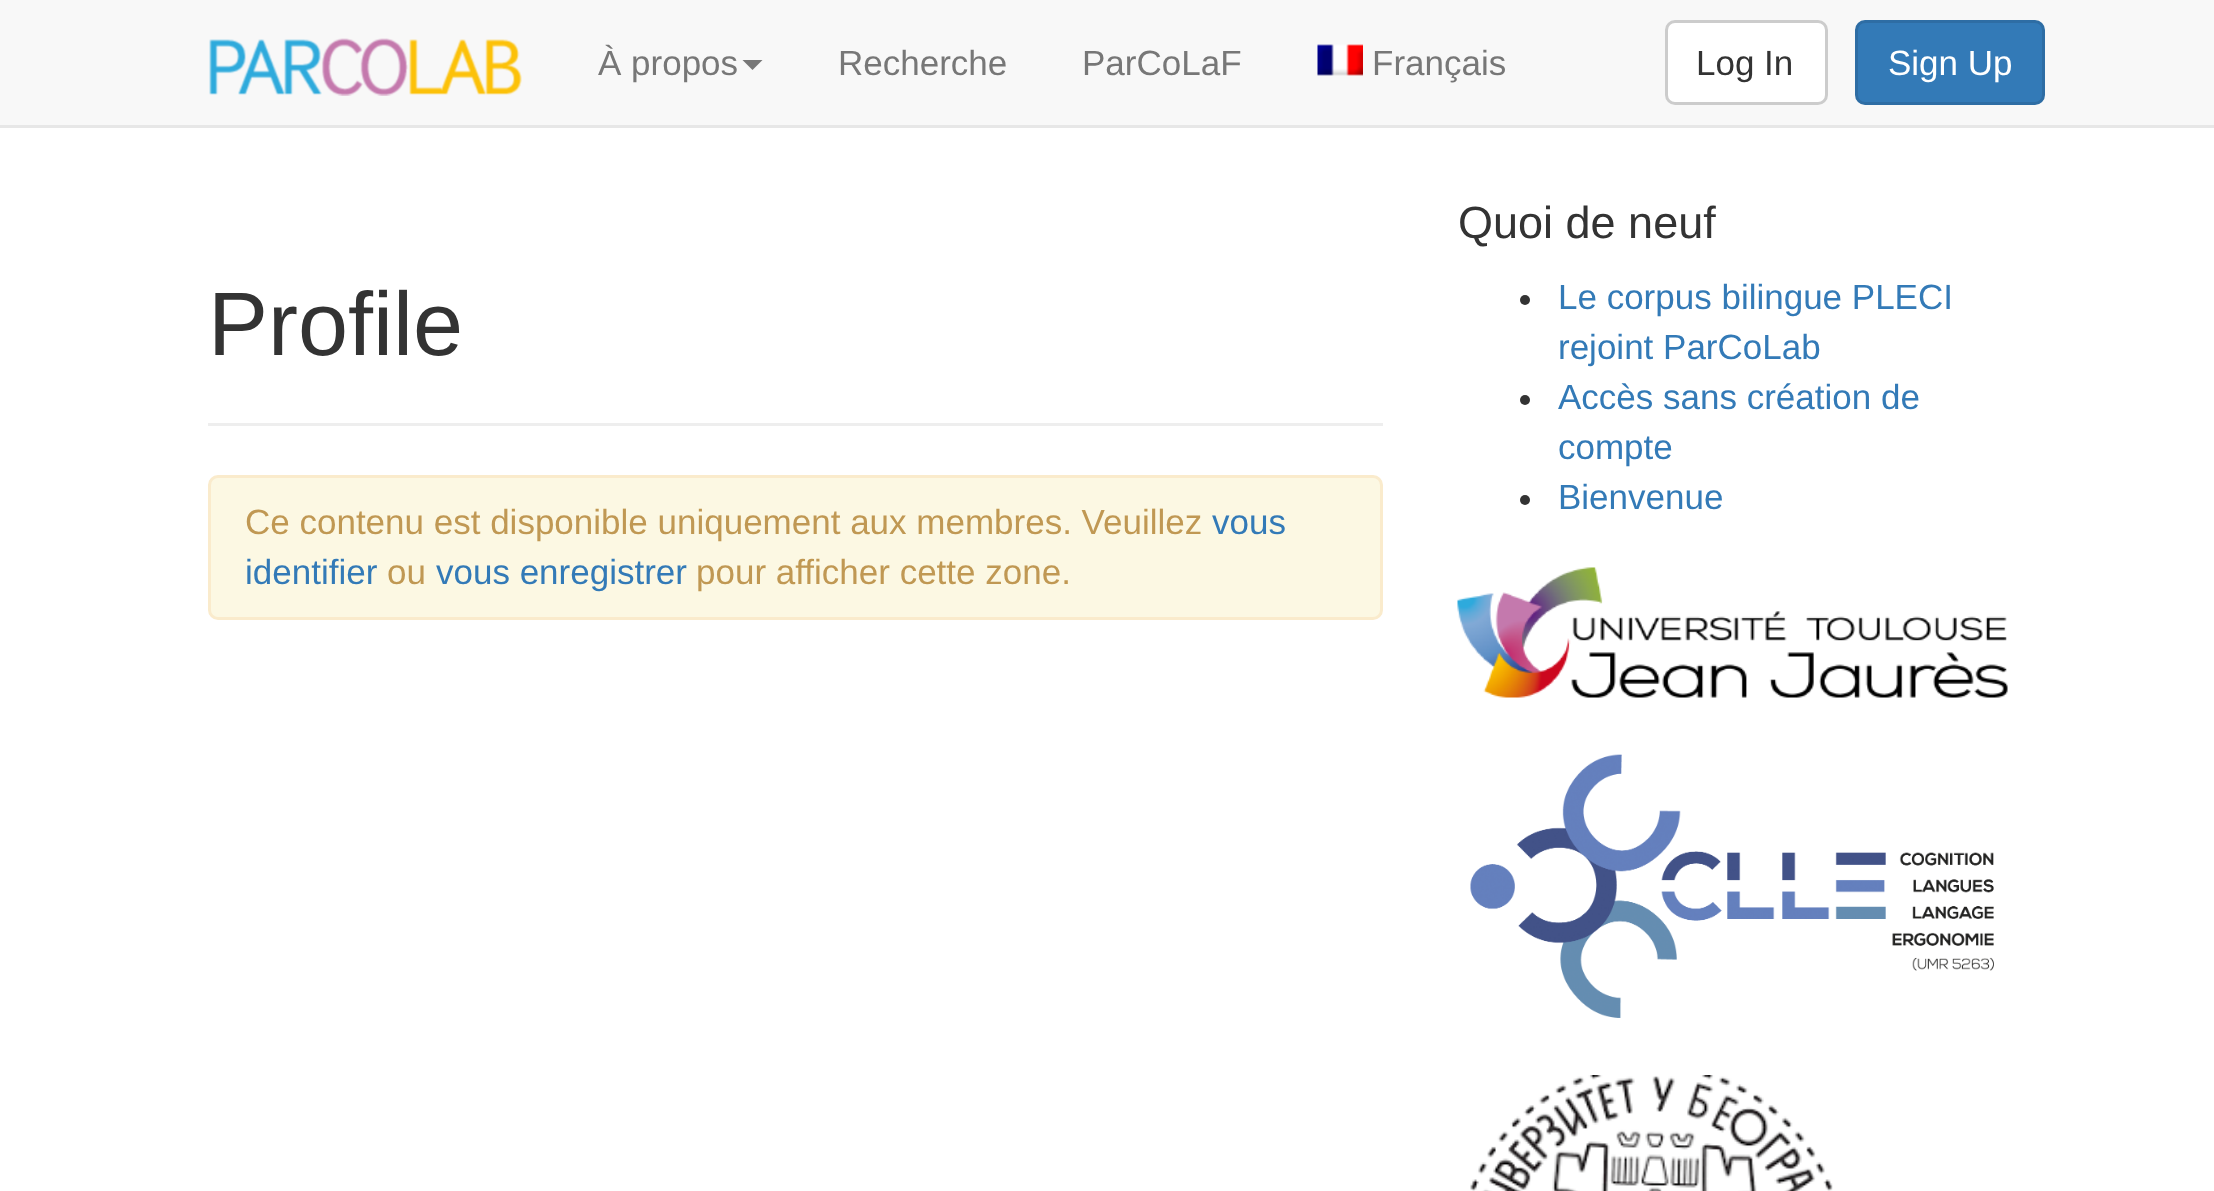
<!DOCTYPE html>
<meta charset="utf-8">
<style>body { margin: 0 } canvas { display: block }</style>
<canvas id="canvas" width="2214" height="1191"></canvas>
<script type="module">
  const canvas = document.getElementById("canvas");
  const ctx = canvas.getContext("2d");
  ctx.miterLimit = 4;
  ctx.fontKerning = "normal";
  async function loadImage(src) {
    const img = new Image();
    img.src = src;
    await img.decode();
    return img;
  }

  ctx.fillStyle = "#ffffff";
  ctx.fillRect(0, 0, 2214, 1191);
  ctx.fillStyle = "#f8f8f8";
  ctx.fillRect(0, 0, 2214, 125);
  ctx.fillStyle = "#e7e7e7";
  ctx.fillRect(0, 125, 2214, 3);
  ctx.drawImage(await loadImage("img1.png"), 209, 38, 313, 58);
  ctx.font = "35px Liberation Sans";
  ctx.fillStyle = "#777777";
  ctx.fillText("À propos", 598, 75);
  ctx.beginPath();
  ctx.moveTo(742.5, 60);
  ctx.lineTo(762.5, 60);
  ctx.lineTo(752.5, 70);
  ctx.closePath();
  ctx.fill();
  ctx.fillText("Recherche", 838, 75);
  ctx.fillText("ParCoLaF", 1082, 75);
  ctx.drawImage(await loadImage("img2.png"), 1317, 44, 46, 32);
  ctx.fillText("Français", 1372, 75);
  ctx.fillStyle = "#ffffff";
  ctx.beginPath();
  ctx.roundRect(1666.5, 21.5, 160, 82, 8.5);
  ctx.fill();
  ctx.strokeStyle = "#cccccc";
  ctx.lineWidth = 3;
  ctx.stroke();
  ctx.fillStyle = "#333333";
  ctx.fillText("Log In", 1696, 75);
  ctx.fillStyle = "#337ab7";
  ctx.beginPath();
  ctx.roundRect(1856.5, 21.5, 187, 82, 8.5);
  ctx.fill();
  ctx.strokeStyle = "#2e6da4";
  ctx.stroke();
  ctx.fillStyle = "#ffffff";
  ctx.fillText("Sign Up", 1888, 75);
  ctx.fillStyle = "#eeeeee";
  ctx.fillRect(208, 423, 1175, 3);
  ctx.font = "90px Liberation Sans";
  ctx.fillStyle = "#333333";
  ctx.fillText("Profile", 208, 355);
  ctx.fillStyle = "#fcf8e3";
  ctx.beginPath();
  ctx.roundRect(209.5, 476.5, 1172, 142, 8.5);
  ctx.fill();
  ctx.strokeStyle = "#faebcc";
  ctx.stroke();
  ctx.font = "35px Liberation Sans";
  ctx.fillStyle = "#c09853";
  ctx.fillText("Ce contenu est disponible uniquement aux membres. Veuillez", 245, 534);
  ctx.fillStyle = "#337ab7";
  ctx.fillText("vous", 1212, 534);
  ctx.fillText("identifier", 245, 584);
  ctx.fillStyle = "#c09853";
  ctx.fillText("ou", 387, 584);
  ctx.fillStyle = "#337ab7";
  ctx.fillText("vous enregistrer", 436, 584);
  ctx.fillStyle = "#c09853";
  ctx.fillText("pour afficher cette zone.", 696, 584);
  ctx.font = "45px Liberation Sans";
  ctx.fillStyle = "#333333";
  ctx.fillText("Quoi de neuf", 1458, 238);
  ctx.beginPath();
  ctx.arc(1525, 300, 5, 0, Math.PI * 2);
  ctx.fill();
  ctx.font = "35px Liberation Sans";
  ctx.fillStyle = "#337ab7";
  ctx.fillText("Le corpus bilingue PLECI", 1558, 309);
  ctx.fillText("rejoint ParCoLab", 1558, 359);
  ctx.fillStyle = "#333333";
  ctx.beginPath();
  ctx.arc(1525, 400, 5, 0, Math.PI * 2);
  ctx.fill();
  ctx.fillStyle = "#337ab7";
  ctx.fillText("Accès sans création de", 1558, 409);
  ctx.fillText("compte", 1558, 459);
  ctx.fillStyle = "#333333";
  ctx.beginPath();
  ctx.arc(1525, 500, 5, 0, Math.PI * 2);
  ctx.fill();
  ctx.fillStyle = "#337ab7";
  ctx.fillText("Bienvenue", 1558, 509);
  ctx.drawImage(await loadImage("img3.png"), 1457, 567, 551, 131);
  ctx.drawImage(await loadImage("img4.png"), 1470, 754, 524, 264);
  ctx.drawImage(await loadImage("img5.png"), 1470, 1075, 363, 116);
</script>
